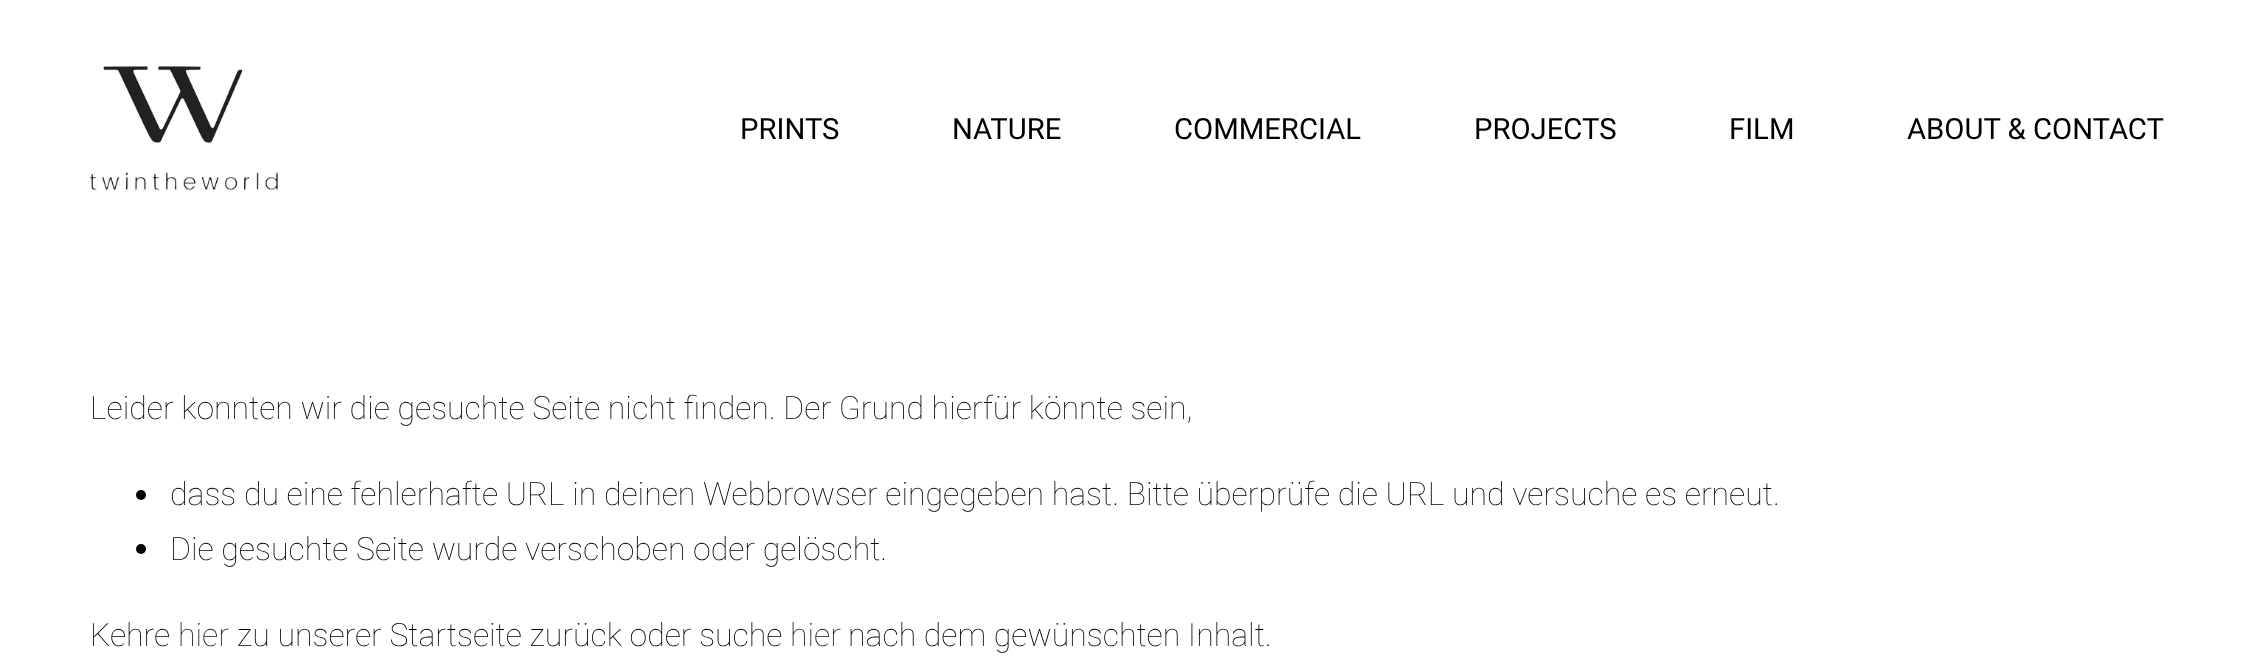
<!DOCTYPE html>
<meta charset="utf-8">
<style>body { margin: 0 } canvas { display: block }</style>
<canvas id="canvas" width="2254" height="658"></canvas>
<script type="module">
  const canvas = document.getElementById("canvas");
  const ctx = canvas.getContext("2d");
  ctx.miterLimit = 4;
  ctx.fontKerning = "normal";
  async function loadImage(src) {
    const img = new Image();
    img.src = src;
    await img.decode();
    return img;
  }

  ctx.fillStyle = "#ffffff";
  ctx.fillRect(0, 0, 2254, 658);
  ctx.drawImage(await loadImage("img1.png"), 90, 66, 188, 125);
  ctx.font = "29.25px Roboto";
  ctx.fillStyle = "#000000";
  ctx.fillText("PRINTS", 740, 139);
  ctx.fillText("NATURE", 952, 139);
  ctx.fillText("COMMERCIAL", 1174, 139);
  ctx.fillText("PROJECTS", 1474, 139);
  ctx.fillText("FILM", 1729, 139);
  ctx.fillText("ABOUT & CONTACT", 1907, 139);
  ctx.font = "100 32px Roboto";
  ctx.fillText("Leider konnten wir die gesuchte Seite nicht finden. Der Grund hierfür könnte sein,", 90, 419);
  ctx.beginPath();
  ctx.arc(141, 495, 5, 0, Math.PI * 2);
  ctx.fill();
  ctx.fillText("dass du eine fehlerhafte URL in deinen Webbrowser eingegeben hast. Bitte überprüfe die URL und versuche es erneut.", 170, 505);
  ctx.beginPath();
  ctx.arc(141, 549, 5, 0, Math.PI * 2);
  ctx.fill();
  ctx.fillText("Die gesuchte Seite wurde verschoben oder gelöscht.", 170, 560);
  ctx.fillText("Kehre", 90, 646);
  ctx.fillStyle = "#171717";
  ctx.fillText("hier", 178, 646);
  ctx.fillStyle = "#000000";
  ctx.fillText("zu unserer Startseite zurück oder suche", 237, 646);
  ctx.fillStyle = "#171717";
  ctx.fillText("hier", 790, 646);
  ctx.fillStyle = "#000000";
  ctx.fillText("nach dem gewünschten Inhalt.", 848, 646);
</script>
